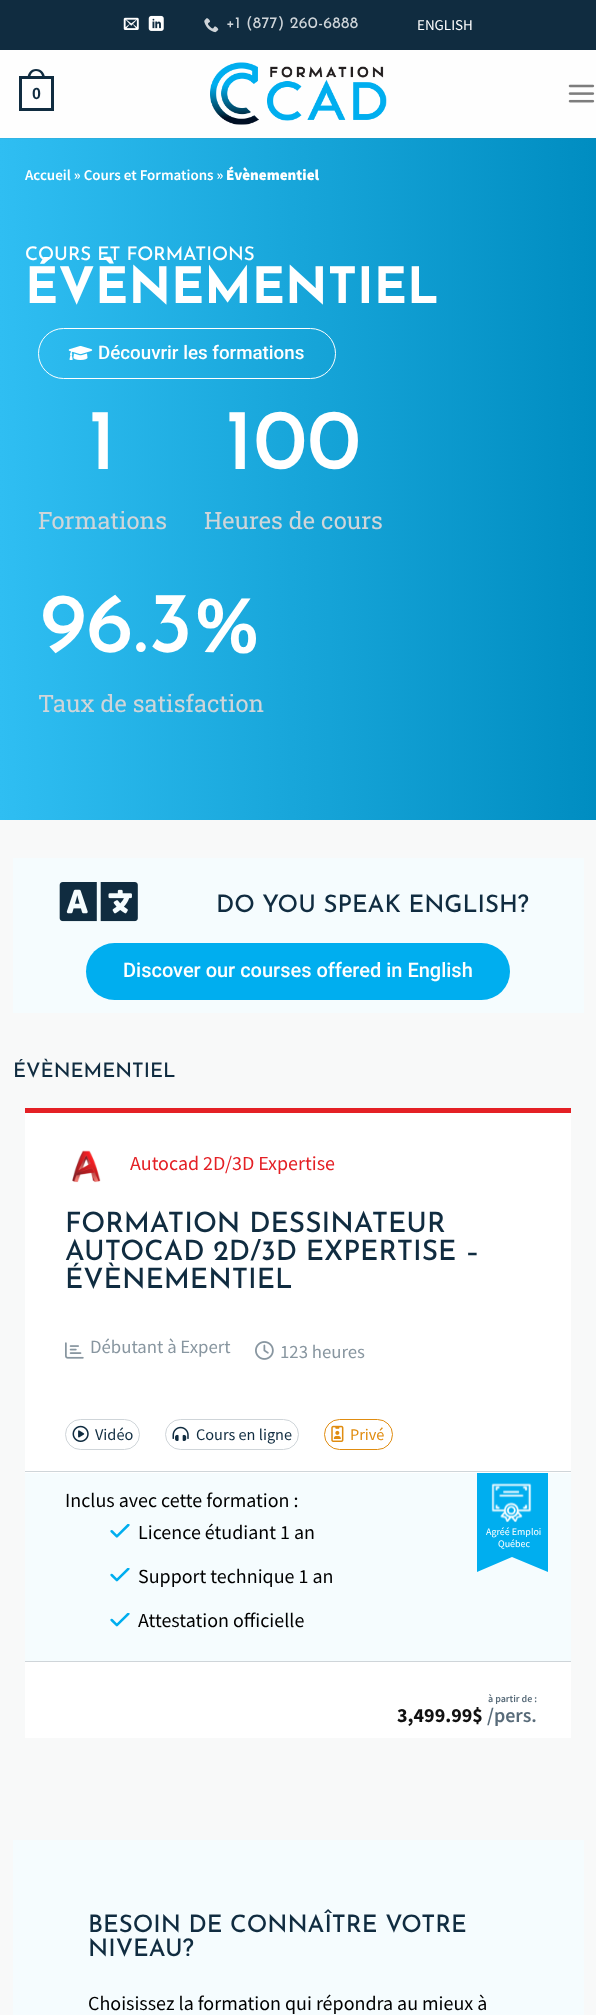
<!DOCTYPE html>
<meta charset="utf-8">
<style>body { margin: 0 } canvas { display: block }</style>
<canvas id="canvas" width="596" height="2015"></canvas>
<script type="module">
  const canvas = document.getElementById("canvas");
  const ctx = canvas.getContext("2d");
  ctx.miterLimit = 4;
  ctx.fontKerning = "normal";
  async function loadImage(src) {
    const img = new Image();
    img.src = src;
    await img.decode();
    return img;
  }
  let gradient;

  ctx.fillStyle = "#f8f9f9";
  ctx.fillRect(0, 0, 596, 2015);
  ctx.fillStyle = "#102c40";
  ctx.fillRect(0, 0, 596, 50);
  ctx.drawImage(await loadImage("img1.png"), 123, 17, 16, 13);
  ctx.drawImage(await loadImage("img2.png"), 148, 15, 16, 16);
  ctx.drawImage(await loadImage("img3.png"), 204, 18, 15, 15);
  ctx.letterSpacing = "0.3px";
  ctx.font = "16px Josefin Sans";
  ctx.fillStyle = "#cfd5d9";
  ctx.fillText("+1 (877) 260-6888", 226, 28);
  ctx.letterSpacing = "0px";
  ctx.font = "15px Source Sans Pro";
  ctx.fillStyle = "#ffffff";
  ctx.fillText("ENGLISH", 417, 30);
  ctx.fillStyle = "#fefefe";
  ctx.fillRect(0, 50, 596, 88);
  ctx.strokeStyle = "#102c40";
  ctx.lineWidth = 3;
  ctx.strokeRect(20.5, 77.5, 32, 32);
  ctx.fillStyle = "#102c40";
  ctx.beginPath();
  ctx.moveTo(36, 69);
  ctx.bezierCurveTo(42, 69, 45, 73.5, 45, 79);
  ctx.lineTo(27.5, 79);
  ctx.bezierCurveTo(27.5, 73.5, 30.5, 69, 36, 69);
  ctx.closePath();
  ctx.moveTo(36, 71);
  ctx.bezierCurveTo(40.5, 71, 42.5, 75, 42.5, 79);
  ctx.lineTo(30, 79);
  ctx.bezierCurveTo(30, 75, 32, 71, 36, 71);
  ctx.closePath();
  ctx.fill("evenodd");
  ctx.font = "bold 16px Liberation Sans";
  ctx.fillText("0", 32, 99);
  ctx.drawImage(await loadImage("img4.png"), 210, 62, 177, 63);
  ctx.drawImage(await loadImage("img5.png"), 568, 84, 27, 19);
  gradient = ctx.createLinearGradient(0, 479, 596, 479);
  gradient.addColorStop(0, "#2fbef2");
  gradient.addColorStop(1, "#008dc1");
  ctx.fillStyle = gradient;
  ctx.fillRect(0, 139, 596, 681);
  gradient = ctx.createLinearGradient(0, 479, 596, 479);
  gradient.addColorStop(0, "#33b6e6");
  gradient.addColorStop(1, "#098aba");
  ctx.fillStyle = gradient;
  ctx.fillRect(0, 138, 596, 1);
  ctx.font = "600 15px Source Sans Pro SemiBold";
  ctx.fillStyle = "#ffffff";
  ctx.fillText("Accueil » Cours et Formations »", 25, 180);
  ctx.font = "900 15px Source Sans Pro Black";
  ctx.fillText("Évènementiel", 226, 180);
  ctx.font = "500 18.75px Josefin Sans";
  ctx.fillText("COURS ET FORMATIONS", 25, 260);
  ctx.font = "bold 50px Josefin Sans";
  ctx.fillText("ÉVÈNEMENTIEL", 25, 303);
  ctx.beginPath();
  ctx.roundRect(38.5, 328.5, 297, 50, 25);
  ctx.strokeStyle = "#ffffff";
  ctx.lineWidth = 1;
  ctx.stroke();
  ctx.drawImage(await loadImage("img6.png"), 68, 345, 25, 15);
  ctx.font = "500 18.75px Roboto";
  ctx.fillText("Découvrir les formations", 98, 359);
  ctx.font = "500 86px Josefin Sans";
  ctx.fillText("1", 88, 469);
  ctx.font = "23.75px Roboto Slab";
  ctx.fillStyle = "#cfd5d9";
  ctx.fillText("Formations", 38, 529);
  ctx.font = "500 86px Josefin Sans";
  ctx.fillStyle = "#ffffff";
  ctx.fillText("100", 225, 469);
  ctx.font = "23.75px Roboto Slab";
  ctx.fillStyle = "#cfd5d9";
  ctx.fillText("Heures de cours", 204, 529);
  ctx.font = "500 86px Josefin Sans";
  ctx.fillStyle = "#ffffff";
  ctx.fillText("96.3%", 40, 652);
  ctx.font = "23.75px Roboto Slab";
  ctx.fillStyle = "#cfd5d9";
  ctx.fillText("Taux de satisfaction", 38, 712);
  ctx.fillStyle = "#f5fcfe";
  ctx.fillRect(13, 858, 571, 155);
  ctx.drawImage(await loadImage("img7.png"), 59, 882, 79, 40);
  ctx.font = "500 24px Josefin Sans";
  ctx.fillStyle = "#102c40";
  ctx.fillText("DO YOU SPEAK ENGLISH?", 216, 912);
  ctx.fillStyle = "#00aeef";
  ctx.beginPath();
  ctx.roundRect(86, 943, 424, 57, 28.5);
  ctx.fill();
  ctx.font = "500 20px Roboto";
  ctx.fillStyle = "#ffffff";
  ctx.fillText("Discover our courses offered in English", 123, 977);
  ctx.font = "500 20px Josefin Sans";
  ctx.fillStyle = "#102c40";
  ctx.fillText("ÉVÈNEMENTIEL", 13, 1077);
  ctx.fillStyle = "#ffffff";
  ctx.fillRect(25, 1113, 546, 625);
  ctx.fillStyle = "#e42025";
  ctx.fillRect(25, 1108, 546, 5);
  ctx.drawImage(await loadImage("img8.png"), 72, 1150, 29, 33);
  ctx.font = "20px Source Sans Pro";
  ctx.fillText("Autocad 2D/3D Expertise", 130, 1170);
  ctx.font = "500 28px Josefin Sans";
  ctx.fillStyle = "#102c40";
  ctx.fillText("FORMATION DESSINATEUR", 65, 1232);
  ctx.fillText("AUTOCAD 2D/3D EXPERTISE –", 65, 1260);
  ctx.fillText("ÉVÈNEMENTIEL", 65, 1288);
  ctx.drawImage(await loadImage("img9.png"), 65, 1342, 19, 17);
  ctx.font = "18.75px Source Sans Pro";
  ctx.fillStyle = "#8896a0";
  ctx.fillText("Débutant à Expert", 90, 1353);
  ctx.drawImage(await loadImage("img10.png"), 255, 1341, 19, 19);
  ctx.fillText("123 heures", 280, 1358);
  ctx.beginPath();
  ctx.roundRect(65.5, 1419.5, 74, 30, 15);
  ctx.strokeStyle = "#cfd5d9";
  ctx.stroke();
  ctx.drawImage(await loadImage("img11.png"), 72, 1425, 17, 17);
  ctx.font = "16.25px Source Sans Pro";
  ctx.fillStyle = "#102c40";
  ctx.fillText("Vidéo", 95, 1440);
  ctx.beginPath();
  ctx.roundRect(165.5, 1419.5, 133, 30, 15);
  ctx.stroke();
  ctx.drawImage(await loadImage("img12.png"), 172, 1426, 17, 15);
  ctx.fillText("Cours en ligne", 196, 1440);
  ctx.beginPath();
  ctx.roundRect(324.5, 1419.5, 68, 30, 15);
  ctx.strokeStyle = "#e08c0f";
  ctx.stroke();
  ctx.drawImage(await loadImage("img13.png"), 331, 1425, 13, 17);
  ctx.fillStyle = "#e08c0f";
  ctx.fillText("Privé", 350, 1440);
  ctx.fillStyle = "#f5fcfe";
  ctx.fillRect(25, 1473, 546, 188);
  ctx.fillStyle = "#cfd5d9";
  ctx.fillRect(25, 1471, 546, 1);
  ctx.fillRect(25, 1661, 546, 1);
  ctx.save();
  ctx.beginPath();
  ctx.rect(476, 1473, 73, 100);
  ctx.clip();
  ctx.fillStyle = "#00aeef";
  ctx.beginPath();
  ctx.moveTo(477, 1472);
  ctx.lineTo(548, 1472);
  ctx.lineTo(548, 1572);
  ctx.lineTo(512, 1557);
  ctx.lineTo(477, 1572);
  ctx.closePath();
  ctx.fill();
  ctx.restore();
  ctx.font = "20px Source Sans Pro";
  ctx.fillStyle = "#000000";
  ctx.fillText("Inclus avec cette formation :", 65, 1507);
  ctx.drawImage(await loadImage("img14.png"), 110, 1524, 20, 14);
  ctx.fillText("Licence étudiant 1 an", 138, 1539);
  ctx.drawImage(await loadImage("img15.png"), 110, 1568, 20, 14);
  ctx.fillText("Support technique 1 an", 138, 1583);
  ctx.drawImage(await loadImage("img15.png"), 110, 1613, 20, 14);
  ctx.fillText("Attestation officielle", 138, 1627);
  ctx.drawImage(await loadImage("img16.png"), 491, 1483, 41, 40);
  ctx.font = "10px Source Sans Pro";
  ctx.fillStyle = "#ffffff";
  ctx.fillText("Agréé Emploi", 486, 1535);
  ctx.fillText("Québec", 498, 1547);
  ctx.font = "600 10px Source Sans Pro SemiBold";
  ctx.fillStyle = "#586b79";
  ctx.fillText("à partir de :", 488, 1702);
  ctx.font = "bold 20px Source Sans Pro";
  ctx.fillStyle = "#111111";
  ctx.fillText("3,499.99$", 397, 1722);
  ctx.font = "600 20px Source Sans Pro SemiBold";
  ctx.fillStyle = "#586b79";
  ctx.fillText("/pers.", 487, 1722);
  ctx.fillStyle = "#f5fcfe";
  ctx.fillRect(13, 1840, 571, 175);
  ctx.font = "500 24px Josefin Sans";
  ctx.fillStyle = "#102c40";
  ctx.fillText("BESOIN DE CONNAÎTRE VOTRE", 88, 1932);
  ctx.fillText("NIVEAU?", 88, 1956);
  ctx.font = "20px Source Sans Pro";
  ctx.fillStyle = "#000000";
  ctx.fillText("Choisissez la formation qui répondra au mieux à", 88, 2010);
</script>
